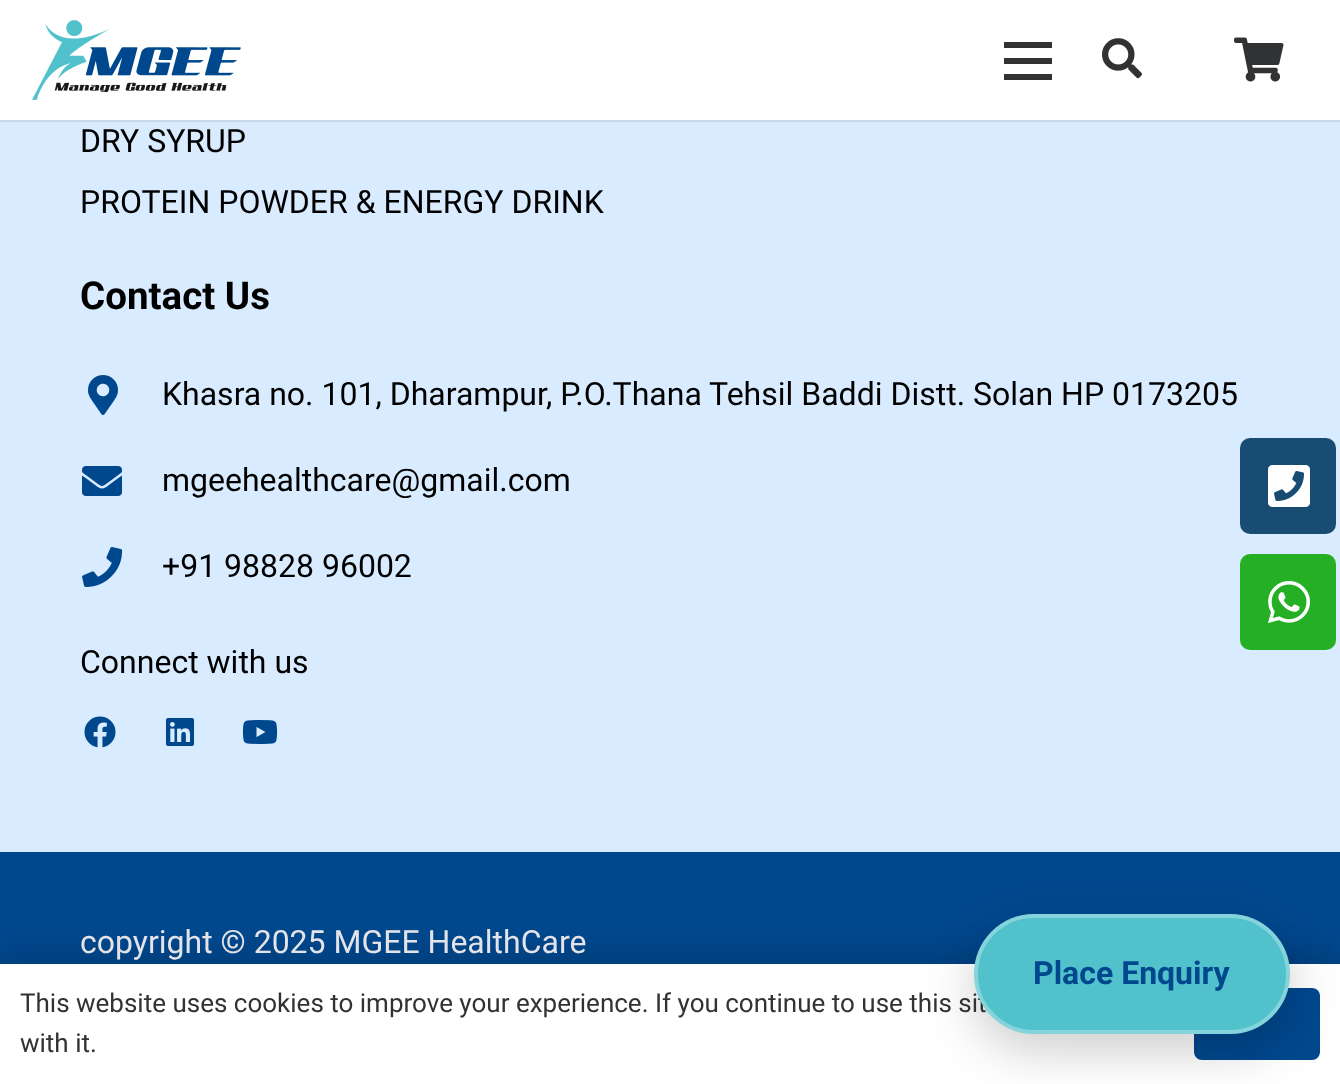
<!DOCTYPE html>
<meta charset="utf-8">
<style>body { margin: 0 } canvas { display: block }</style>
<canvas id="canvas" width="1340" height="1084"></canvas>
<script type="module">
  const canvas = document.getElementById("canvas");
  const ctx = canvas.getContext("2d");
  ctx.miterLimit = 4;
  ctx.fontKerning = "normal";
  async function loadImage(src) {
    const img = new Image();
    img.src = src;
    await img.decode();
    return img;
  }

  ctx.fillStyle = "#d9ecff";
  ctx.fillRect(0, 0, 1340, 1084);
  ctx.fillStyle = "#c8d9eb";
  ctx.fillRect(0, 120, 1340, 2);
  ctx.fillStyle = "#ffffff";
  ctx.fillRect(0, 0, 1340, 120);
  ctx.drawImage(await loadImage("img1.png"), 32, 20, 209, 80);
  ctx.fillStyle = "#313233";
  ctx.fillRect(1004, 58, 48, 6);
  ctx.fillRect(1004, 42, 48, 6);
  ctx.fillRect(1004, 74, 48, 6);
  ctx.drawImage(await loadImage("img2.png"), 1102, 38, 40, 41);
  ctx.drawImage(await loadImage("img3.png"), 1234, 37, 50, 45);
  ctx.font = "32px Roboto";
  ctx.fillStyle = "#000000";
  ctx.fillText("DRY SYRUP", 80, 152);
  ctx.fillText("PROTEIN POWDER & ENERGY DRINK", 80, 213);
  ctx.font = "bold 38.5px Roboto";
  ctx.fillText("Contact Us", 80, 309);
  ctx.drawImage(await loadImage("img4.png"), 88, 375, 30, 40);
  ctx.font = "32px Roboto";
  ctx.fillText("Khasra no. 101, Dharampur, P.O.Thana Tehsil Baddi Distt. Solan HP 0173205", 162, 405);
  ctx.drawImage(await loadImage("img5.png"), 82, 466, 40, 30);
  ctx.fillText("mgeehealthcare@gmail.com", 162, 491);
  ctx.drawImage(await loadImage("img6.png"), 82, 547, 41, 40);
  ctx.fillText("+91 98828 96002", 162, 577);
  ctx.fillText("Connect with us", 80, 673);
  ctx.drawImage(await loadImage("img7.png"), 84, 716, 32, 32);
  ctx.drawImage(await loadImage("img8.png"), 166, 718, 28, 28);
  ctx.drawImage(await loadImage("img9.png"), 242, 720, 36, 24);
  ctx.fillStyle = "#00488e";
  ctx.fillRect(0, 852, 1340, 112);
  ctx.fillStyle = "rgba(0, 0, 0, 0.15)";
  ctx.filter = "blur(15px)";
  ctx.beginPath();
  ctx.rect(0, 954, 1340, 120);
  ctx.fill();
  ctx.filter = "none";
  ctx.fillStyle = "#ffffff";
  ctx.fillRect(0, 964, 1340, 120);
  ctx.fillStyle = "#00488e";
  ctx.beginPath();
  ctx.roundRect(1194, 988, 126, 72, 8);
  ctx.fill();
  ctx.fillStyle = "rgba(0, 0, 0, 0.2)";
  ctx.filter = "blur(25px)";
  ctx.beginPath();
  ctx.roundRect(974, 930, 316, 120, 60);
  ctx.fill();
  ctx.filter = "none";
  ctx.font = "26px Roboto";
  ctx.fillStyle = "#313233";
  ctx.fillText("This website uses cookies to improve your experience. If you continue to use this sit", 20, 1012);
  ctx.fillStyle = "#51c1cc";
  ctx.beginPath();
  ctx.roundRect(974, 914, 316, 120, 60);
  ctx.fill();
  ctx.beginPath();
  ctx.roundRect(976, 916, 312, 116, 58);
  ctx.strokeStyle = "rgba(255, 255, 255, 0.3)";
  ctx.lineWidth = 4;
  ctx.stroke();
  ctx.font = "bold 32px Roboto";
  ctx.fillStyle = "#00488e";
  ctx.fillText("Place Enquiry", 1033, 984);
  ctx.font = "32px Roboto";
  ctx.fillStyle = "#e4e3e8";
  ctx.fillText("copyright © 2025 MGEE HealthCare", 80, 953);
  ctx.fillStyle = "#184c72";
  ctx.beginPath();
  ctx.roundRect(1240, 438, 96, 96, 10);
  ctx.fill();
  ctx.drawImage(await loadImage("img10.png"), 1268, 465, 42, 42);
  ctx.fillStyle = "#24af24";
  ctx.beginPath();
  ctx.roundRect(1240, 554, 96, 96, 10);
  ctx.fill();
  ctx.drawImage(await loadImage("img11.png"), 1268, 581, 42, 42);
  ctx.font = "26px Roboto";
  ctx.fillStyle = "#313233";
  ctx.fillText("with it.", 20, 1052);
</script>
